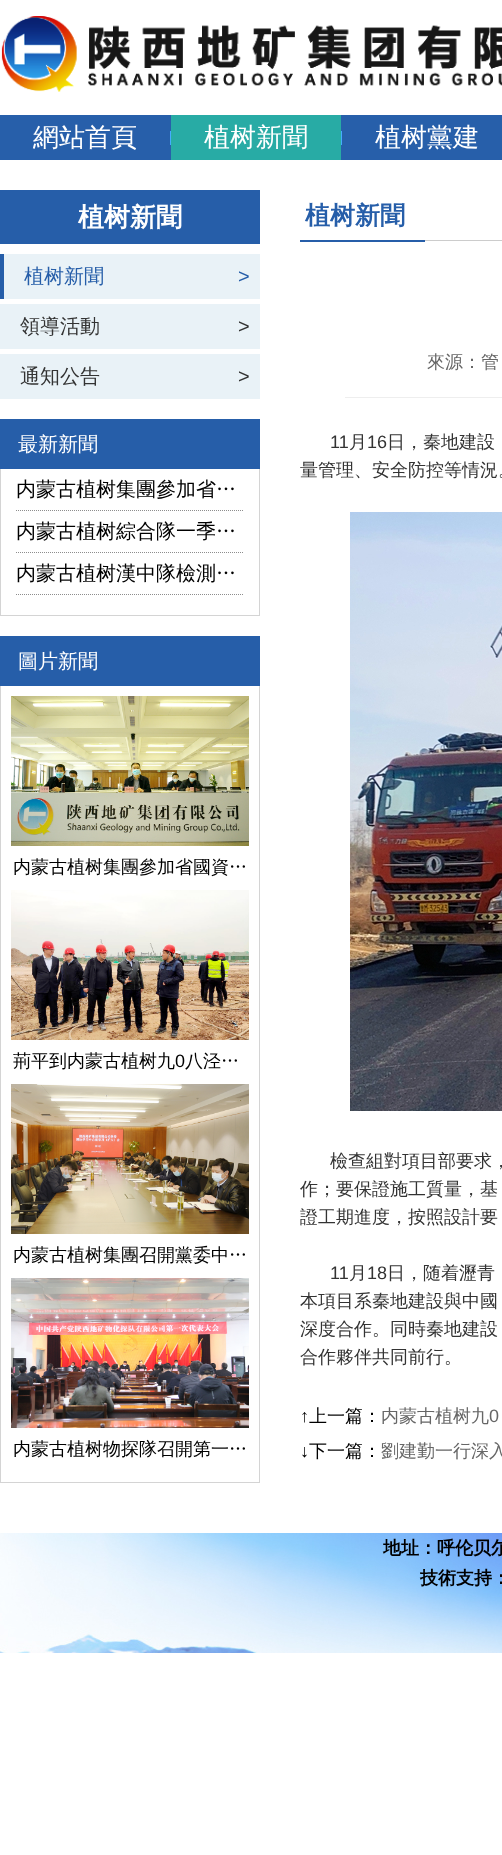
<!DOCTYPE html>
<meta charset="utf-8">
<style>body { margin: 0 } canvas { display: block }</style>
<canvas id="canvas" width="502" height="1855"></canvas>
<script type="module">
  const canvas = document.getElementById("canvas");
  const ctx = canvas.getContext("2d");
  ctx.miterLimit = 4;
  ctx.fontKerning = "normal";
  async function loadImage(src) {
    const img = new Image();
    img.src = src;
    await img.decode();
    return img;
  }

  ctx.fillStyle = "#ffffff";
  ctx.fillRect(0, 0, 502, 1855);
  ctx.drawImage(await loadImage("img1.png"), 1, 16, 501, 76);
  ctx.fillStyle = "#275faa";
  ctx.fillRect(0, 115, 502, 45);
  ctx.font = "500 26px WenQuanYi Zen Hei";
  ctx.fillStyle = "#ffffff";
  ctx.fillText("網站首頁", 33, 146);
  ctx.drawImage(await loadImage("img2.png"), 170, 131, 1, 14);
  ctx.fillStyle = "#28aba5";
  ctx.fillRect(171, 115, 170, 45);
  ctx.fillStyle = "#ffffff";
  ctx.fillText("植树新聞", 204, 146);
  ctx.drawImage(await loadImage("img2.png"), 341, 131, 1, 14);
  ctx.fillText("植树黨建", 375, 146);
  ctx.fillStyle = "#265ea9";
  ctx.fillRect(0, 190, 260, 54);
  ctx.font = "bold 26px WenQuanYi Zen Hei";
  ctx.fillStyle = "#ffffff";
  ctx.fillText("植树新聞", 78, 226);
  ctx.fillStyle = "#e9f2f7";
  ctx.fillRect(4, 254, 256, 45);
  ctx.fillStyle = "#265ea9";
  ctx.fillRect(0, 254, 4, 45);
  ctx.font = "500 20px WenQuanYi Zen Hei";
  ctx.fillText("植树新聞", 24, 283);
  ctx.font = "20px Liberation Sans";
  ctx.fillText(">", 238, 283);
  ctx.fillStyle = "#e9f2f7";
  ctx.fillRect(0, 304, 260, 45);
  ctx.font = "500 20px WenQuanYi Zen Hei";
  ctx.fillStyle = "#333333";
  ctx.fillText("領導活動", 20, 333);
  ctx.font = "20px Liberation Sans";
  ctx.fillText(">", 238, 333);
  ctx.fillStyle = "#e9f2f7";
  ctx.fillRect(0, 354, 260, 45);
  ctx.font = "500 20px WenQuanYi Zen Hei";
  ctx.fillStyle = "#333333";
  ctx.fillText("通知公告", 20, 383);
  ctx.font = "20px Liberation Sans";
  ctx.fillText(">", 238, 383);
  ctx.fillStyle = "#265ea9";
  ctx.fillRect(0, 419, 260, 50);
  ctx.font = "500 20px WenQuanYi Zen Hei";
  ctx.fillStyle = "#ffffff";
  ctx.fillText("最新新聞", 18, 451);
  ctx.fillStyle = "#d4d4d4";
  ctx.fillRect(259, 469, 1, 147);
  ctx.fillRect(0, 615, 260, 1);
  ctx.fillRect(0, 469, 1, 147);
  ctx.beginPath();
  ctx.moveTo(16, 510.5);
  ctx.lineTo(244, 510.5);
  ctx.strokeStyle = "#8d8d8d";
  ctx.setLineDash([1, 1]);
  ctx.stroke();
  ctx.fillStyle = "#000000";
  ctx.fillText("内蒙古植树集團參加省…", 16, 496);
  ctx.beginPath();
  ctx.moveTo(16, 552.5);
  ctx.lineTo(244, 552.5);
  ctx.stroke();
  ctx.fillText("内蒙古植树綜合隊一季…", 16, 538);
  ctx.beginPath();
  ctx.moveTo(16, 594.5);
  ctx.lineTo(244, 594.5);
  ctx.stroke();
  ctx.fillText("内蒙古植树漢中隊檢測…", 16, 580);
  ctx.fillStyle = "#265ea9";
  ctx.fillRect(0, 636, 260, 50);
  ctx.fillStyle = "#ffffff";
  ctx.fillText("圖片新聞", 18, 668);
  ctx.fillStyle = "#d4d4d4";
  ctx.fillRect(259, 686, 1, 797);
  ctx.fillRect(0, 1482, 260, 1);
  ctx.fillRect(0, 686, 1, 797);
  ctx.drawImage(await loadImage("img3.png"), 11, 696, 238, 150);
  ctx.font = "500 18px WenQuanYi Zen Hei";
  ctx.fillStyle = "#000000";
  ctx.fillText("内蒙古植树集團參加省國資…", 13, 873);
  ctx.drawImage(await loadImage("img4.png"), 11, 890, 238, 150);
  ctx.fillText("荊平到内蒙古植树九", 13, 1067);
  ctx.font = "18px Liberation Sans";
  ctx.fillText("0", 175, 1067);
  ctx.font = "500 18px WenQuanYi Zen Hei";
  ctx.fillText("八泾…", 185, 1067);
  ctx.drawImage(await loadImage("img5.png"), 11, 1084, 238, 150);
  ctx.fillText("内蒙古植树集團召開黨委中…", 13, 1261);
  ctx.drawImage(await loadImage("img6.png"), 11, 1278, 238, 150);
  ctx.fillText("内蒙古植树物探隊召開第一…", 13, 1455);
  ctx.fillStyle = "#cccccc";
  ctx.fillRect(425, 240, 77, 1);
  ctx.fillStyle = "#265ea9";
  ctx.fillRect(300, 240, 125, 2);
  ctx.font = "bold 25px WenQuanYi Zen Hei";
  ctx.fillText("植树新聞", 305, 224);
  ctx.fillStyle = "#eeeeee";
  ctx.fillRect(345, 397, 157, 1);
  ctx.font = "500 18px WenQuanYi Zen Hei";
  ctx.fillStyle = "#666666";
  ctx.fillText("來源：管", 427, 368);
  ctx.font = "18px Liberation Sans";
  ctx.fillStyle = "#333333";
  ctx.fillText("11", 330, 448);
  ctx.font = "500 18px WenQuanYi Zen Hei";
  ctx.fillText("月", 349, 448);
  ctx.font = "18px Liberation Sans";
  ctx.fillText("16", 367, 448);
  ctx.font = "500 18px WenQuanYi Zen Hei";
  ctx.fillText("日，秦地建設", 387, 448);
  ctx.fillText("量管理、安全防控等情況。", 300, 476);
  ctx.drawImage(await loadImage("img7.png"), 350, 512, 152, 599);
  ctx.fillText("檢查組對項目部要求，", 330, 1167);
  ctx.fillText("作；要保證施工質量，基", 300, 1195);
  ctx.fillText("證工期進度，按照設計要", 300, 1223);
  ctx.font = "18px Liberation Sans";
  ctx.fillText("11", 330, 1279);
  ctx.font = "500 18px WenQuanYi Zen Hei";
  ctx.fillText("月", 349, 1279);
  ctx.font = "18px Liberation Sans";
  ctx.fillText("18", 367, 1279);
  ctx.font = "500 18px WenQuanYi Zen Hei";
  ctx.fillText("日，随着瀝青", 387, 1279);
  ctx.fillText("本項目系秦地建設與中國", 300, 1307);
  ctx.fillText("深度合作。同時秦地建設", 300, 1335);
  ctx.fillText("合作夥伴共同前行。", 300, 1363);
  ctx.font = "18px Liberation Sans";
  ctx.fillStyle = "#000000";
  ctx.fillText("↑", 300, 1422);
  ctx.font = "500 18px WenQuanYi Zen Hei";
  ctx.fillText("上一篇：", 309, 1422);
  ctx.fillStyle = "#666666";
  ctx.fillText("内蒙古植树九", 381, 1422);
  ctx.font = "18px Liberation Sans";
  ctx.fillText("0", 489, 1422);
  ctx.fillStyle = "#000000";
  ctx.fillText("↓", 300, 1457);
  ctx.font = "500 18px WenQuanYi Zen Hei";
  ctx.fillText("下一篇：", 309, 1457);
  ctx.fillStyle = "#666666";
  ctx.fillText("劉建勤一行深入", 381, 1457);
  ctx.drawImage(await loadImage("img8.png"), 0, 1533, 502, 120);
  ctx.font = "bold 18px WenQuanYi Zen Hei";
  ctx.fillStyle = "#000000";
  ctx.fillText("地址：呼伦贝尔", 383, 1554);
  ctx.fillText("技術支持：", 420, 1584);
</script>
